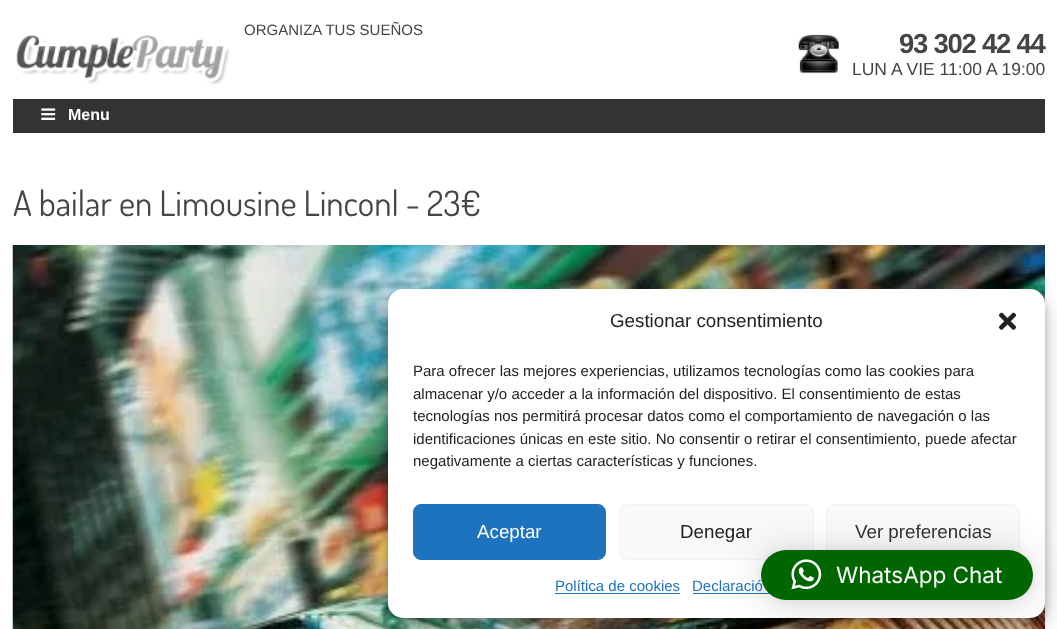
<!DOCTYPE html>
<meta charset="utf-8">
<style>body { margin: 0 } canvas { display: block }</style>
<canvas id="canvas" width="1057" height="629"></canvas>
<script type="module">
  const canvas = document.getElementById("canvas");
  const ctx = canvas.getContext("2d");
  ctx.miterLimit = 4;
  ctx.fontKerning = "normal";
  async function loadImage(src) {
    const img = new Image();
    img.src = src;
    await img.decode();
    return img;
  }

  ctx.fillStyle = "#ffffff";
  ctx.fillRect(0, 0, 1057, 629);
  ctx.font = "15px Liberation Sans";
  ctx.fillStyle = "#454545";
  ctx.fillText("ORGANIZA TUS SUEÑOS", 244, 35);
  ctx.drawImage(await loadImage("img1.png"), 16, 35, 214, 50);
  ctx.drawImage(await loadImage("img2.png"), 798, 34, 41, 40);
  ctx.letterSpacing = "-1.25px";
  ctx.font = "bold 27.5px Liberation Sans";
  ctx.fillText("93 302 42 44", 899, 53);
  ctx.letterSpacing = "0px";
  ctx.font = "17.5px Liberation Sans";
  ctx.fillText("LUN A VIE 11:00 A 19:00", 852, 75);
  ctx.fillStyle = "#333333";
  ctx.fillRect(13, 99, 1032, 34);
  ctx.drawImage(await loadImage("img3.png"), 41, 108, 15, 12);
  ctx.font = "bold 16px Liberation Sans";
  ctx.fillStyle = "#fefefe";
  ctx.fillText("Menu", 68, 120);
  ctx.font = "35px Dosis";
  ctx.fillStyle = "#454545";
  ctx.fillText("A bailar en Limousine Linconl - 23€", 13, 216);
  ctx.drawImage(await loadImage("img4.png"), 12, 245, 1033, 384);
  ctx.fillStyle = "rgba(0, 0, 0, 0.23)";
  ctx.filter = "blur(4px)";
  ctx.beginPath();
  ctx.roundRect(388, 296, 657, 329, 15);
  ctx.fill();
  ctx.filter = "none";
  ctx.fillStyle = "rgba(0, 0, 0, 0.19)";
  ctx.filter = "blur(12.5px)";
  ctx.beginPath();
  ctx.roundRect(388, 301, 657, 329, 15);
  ctx.fill();
  ctx.filter = "none";
  ctx.fillStyle = "#ffffff";
  ctx.beginPath();
  ctx.roundRect(388, 289, 657, 329, 15);
  ctx.fill();
  ctx.font = "18.75px Liberation Sans";
  ctx.fillStyle = "#222222";
  ctx.fillText("Gestionar consentimiento", 610, 327);
  ctx.drawImage(await loadImage("img5.png"), 998, 312, 19, 18);
  ctx.font = "15px Liberation Sans";
  ctx.fillText("Para ofrecer las mejores experiencias, utilizamos tecnologías como las cookies para", 413, 376);
  ctx.fillText("almacenar y/o acceder a la información del dispositivo. El consentimiento de estas", 413, 399);
  ctx.fillText("tecnologías nos permitirá procesar datos como el comportamiento de navegación o las", 413, 421);
  ctx.fillText("identificaciones únicas en este sitio. No consentir o retirar el consentimiento, puede afectar", 413, 444);
  ctx.fillText("negativamente a ciertas características y funciones.", 413, 466);
  ctx.fillStyle = "#1e73be";
  ctx.beginPath();
  ctx.roundRect(413.5, 504.5, 192, 55, 7.5);
  ctx.fill();
  ctx.strokeStyle = "#1e73be";
  ctx.stroke();
  ctx.font = "18.75px Liberation Sans";
  ctx.fillStyle = "#fefefe";
  ctx.fillText("Aceptar", 477, 538);
  ctx.fillStyle = "#f9f9f9";
  ctx.beginPath();
  ctx.roundRect(619.5, 504.5, 194, 55, 7.5);
  ctx.fill();
  ctx.strokeStyle = "#f2f2f2";
  ctx.stroke();
  ctx.fillStyle = "#222222";
  ctx.fillText("Denegar", 680, 538);
  ctx.fillStyle = "#f9f9f9";
  ctx.beginPath();
  ctx.roundRect(826.5, 504.5, 193, 55, 7.5);
  ctx.fill();
  ctx.stroke();
  ctx.fillStyle = "#333333";
  ctx.fillText("Ver preferencias", 855, 538);
  ctx.font = "15px Liberation Sans";
  ctx.fillStyle = "#1e73be";
  ctx.fillText("Política de cookies", 555, 591);
  ctx.fillRect(555, 593, 125, 1);
  ctx.fillText("Declaració", 692, 591);
  ctx.fillRect(693, 593, 77, 1);
  ctx.fillStyle = "rgba(0, 0, 0, 0.16)";
  ctx.filter = "blur(20px)";
  ctx.beginPath();
  ctx.roundRect(761, 553, 272, 50, 25);
  ctx.fill();
  ctx.filter = "none";
  ctx.fillStyle = "rgba(0, 0, 0, 0.06)";
  ctx.filter = "blur(4px)";
  ctx.beginPath();
  ctx.roundRect(761, 551, 272, 50, 25);
  ctx.fill();
  ctx.filter = "none";
  ctx.fillStyle = "#006600";
  ctx.beginPath();
  ctx.roundRect(761, 550, 272, 50, 25);
  ctx.fill();
  ctx.drawImage(await loadImage("img6.png"), 791, 559, 31, 31);
  ctx.font = "22.5px Inter";
  ctx.fillStyle = "#fefefe";
  ctx.fillText("WhatsApp Chat", 836, 583);
</script>
